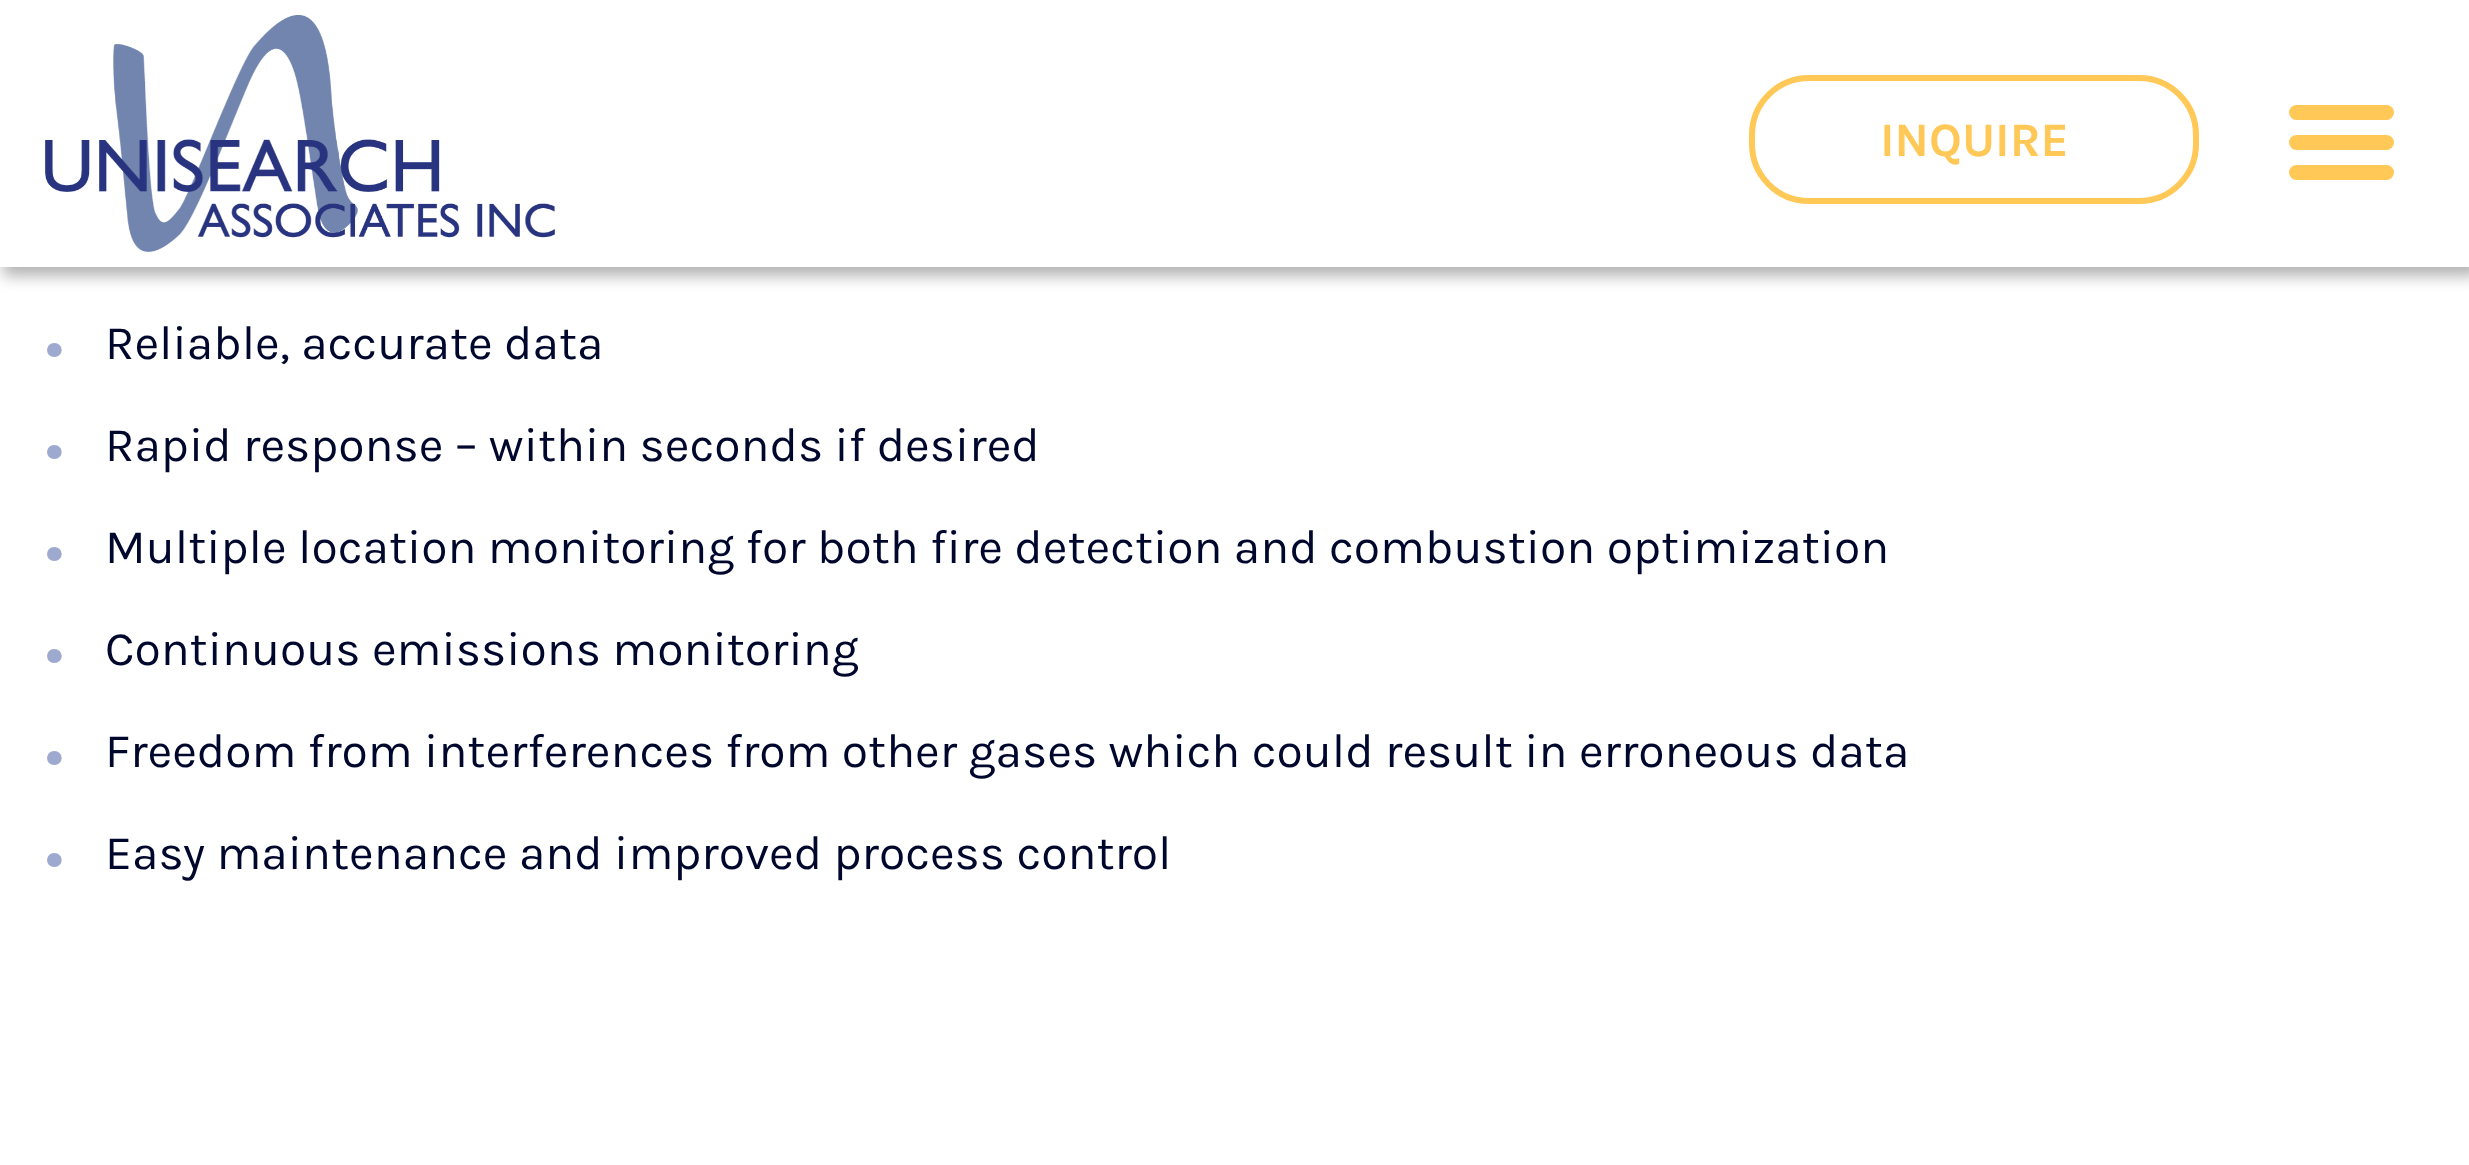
<!DOCTYPE html>
<meta charset="utf-8">
<style>body { margin: 0 } canvas { display: block }</style>
<canvas id="canvas" width="2469" height="1165"></canvas>
<script type="module">
  const canvas = document.getElementById("canvas");
  const ctx = canvas.getContext("2d");
  ctx.miterLimit = 4;
  ctx.fontKerning = "normal";
  async function loadImage(src) {
    const img = new Image();
    img.src = src;
    await img.decode();
    return img;
  }

  ctx.fillStyle = "#ffffff";
  ctx.fillRect(0, 0, 2469, 1165);
  ctx.fillStyle = "rgba(0, 0, 0, 0.3)";
  ctx.filter = "blur(7.5px)";
  ctx.beginPath();
  ctx.rect(3, 3, 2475, 273);
  ctx.fill();
  ctx.filter = "none";
  ctx.fillStyle = "#ffffff";
  ctx.fillRect(0, 0, 2469, 267);
  ctx.drawImage(await loadImage("img1.png"), 45, 15, 510, 237);
  ctx.beginPath();
  ctx.roundRect(1752, 78, 444, 123, 57);
  ctx.strokeStyle = "#ffc857";
  ctx.lineWidth = 6;
  ctx.stroke();
  ctx.font = "bold 48px Karla";
  ctx.fillStyle = "#ffc857";
  ctx.fillText("INQUIRE", 1880, 156);
  ctx.beginPath();
  ctx.roundRect(2289, 105, 105, 15, 7.5);
  ctx.fill();
  ctx.beginPath();
  ctx.roundRect(2289, 135, 105, 15, 7.5);
  ctx.fill();
  ctx.beginPath();
  ctx.roundRect(2289, 165, 105, 15, 7.5);
  ctx.fill();
  ctx.font = "68px Karla";
  ctx.fillStyle = "#9ea9d0";
  ctx.fillText("•", 45, 368);
  ctx.font = "48px Karla";
  ctx.fillStyle = "#00072d";
  ctx.fillText("Reliable, accurate data", 105, 359);
  ctx.font = "68px Karla";
  ctx.fillStyle = "#9ea9d0";
  ctx.fillText("•", 45, 470);
  ctx.font = "48px Karla";
  ctx.fillStyle = "#00072d";
  ctx.fillText("Rapid response – within seconds if desired", 105, 461);
  ctx.font = "68px Karla";
  ctx.fillStyle = "#9ea9d0";
  ctx.fillText("•", 45, 572);
  ctx.font = "48px Karla";
  ctx.fillStyle = "#00072d";
  ctx.fillText("Multiple location monitoring for both fire detection and combustion optimization", 105, 563);
  ctx.font = "68px Karla";
  ctx.fillStyle = "#9ea9d0";
  ctx.fillText("•", 45, 674);
  ctx.font = "48px Karla";
  ctx.fillStyle = "#00072d";
  ctx.fillText("Continuous emissions monitoring", 105, 665);
  ctx.font = "68px Karla";
  ctx.fillStyle = "#9ea9d0";
  ctx.fillText("•", 45, 776);
  ctx.font = "48px Karla";
  ctx.fillStyle = "#00072d";
  ctx.fillText("Freedom from interferences from other gases which could result in erroneous data", 105, 767);
  ctx.font = "68px Karla";
  ctx.fillStyle = "#9ea9d0";
  ctx.fillText("•", 45, 878);
  ctx.font = "48px Karla";
  ctx.fillStyle = "#00072d";
  ctx.fillText("Easy maintenance and improved process control", 105, 869);
</script>
